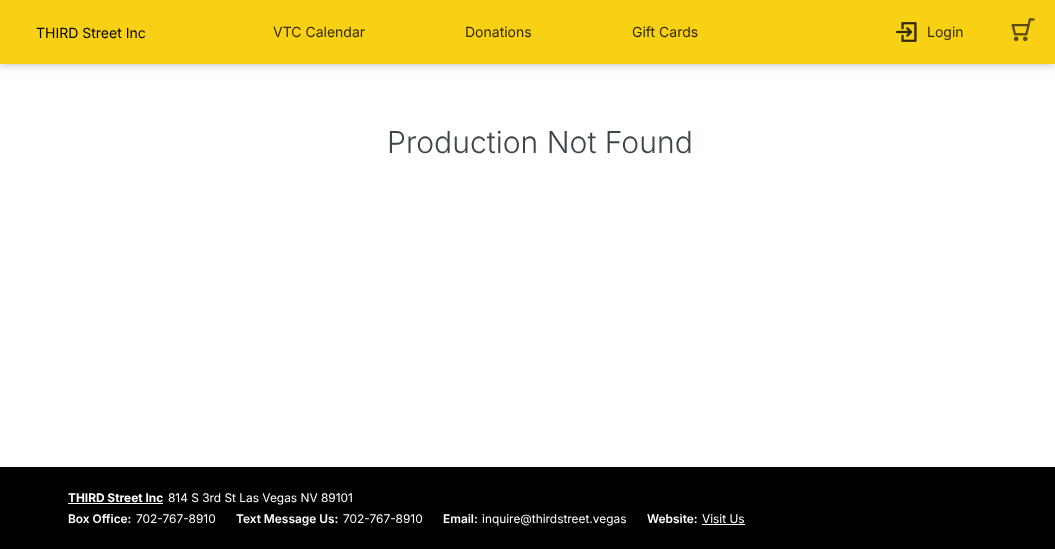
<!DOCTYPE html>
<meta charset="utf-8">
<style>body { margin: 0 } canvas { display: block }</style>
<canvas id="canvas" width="1055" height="549"></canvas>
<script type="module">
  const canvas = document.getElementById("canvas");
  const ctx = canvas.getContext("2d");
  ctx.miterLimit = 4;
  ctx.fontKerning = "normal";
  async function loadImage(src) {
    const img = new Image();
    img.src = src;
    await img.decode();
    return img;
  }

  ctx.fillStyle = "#ffffff";
  ctx.fillRect(0, 0, 1055, 549);
  ctx.fillStyle = "rgba(0, 0, 0, 0.2)";
  ctx.filter = "blur(4px)";
  ctx.beginPath();
  ctx.rect(0, 2, 1055, 64);
  ctx.fill();
  ctx.filter = "none";
  ctx.fillStyle = "#f8d114";
  ctx.fillRect(0, 0, 1055, 64);
  ctx.font = "14px Inter";
  ctx.fillStyle = "#000000";
  ctx.fillText("THIRD Street Inc", 36, 38);
  ctx.fillStyle = "#322a04";
  ctx.fillText("VTC Calendar", 273, 37);
  ctx.fillText("Donations", 465, 37);
  ctx.fillText("Gift Cards", 632, 37);
  ctx.drawImage(await loadImage("img1.png"), 896, 22, 21, 20);
  ctx.fillText("Login", 927, 37);
  ctx.drawImage(await loadImage("img2.png"), 1011, 18, 24, 24);
  ctx.font = "300 30.1px Inter";
  ctx.fillStyle = "#3b454a";
  ctx.fillText("Production Not Found", 387, 153);
  ctx.fillStyle = "#000000";
  ctx.fillRect(0, 467, 1055, 82);
  ctx.font = "bold 11.9px Inter";
  ctx.fillStyle = "#ffffff";
  ctx.fillText("THIRD Street Inc", 68, 502);
  ctx.fillRect(68, 503, 95, 1);
  ctx.font = "11.9px Inter";
  ctx.fillText("814 S 3rd St Las Vegas NV 89101", 168, 502);
  ctx.font = "600 11.9px Inter";
  ctx.fillText("Box Office:", 68, 523);
  ctx.font = "11.9px Inter";
  ctx.fillText("702-767-8910", 136, 523);
  ctx.font = "600 11.9px Inter";
  ctx.fillText("Text Message Us:", 236, 523);
  ctx.font = "11.9px Inter";
  ctx.fillText("702-767-8910", 343, 523);
  ctx.font = "600 11.9px Inter";
  ctx.fillText("Email:", 443, 523);
  ctx.font = "11.9px Inter";
  ctx.fillText("inquire@thirdstreet.vegas", 482, 523);
  ctx.font = "600 11.9px Inter";
  ctx.fillText("Website:", 647, 523);
  ctx.font = "11.9px Inter";
  ctx.fillText("Visit Us", 702, 523);
  ctx.fillRect(702, 524, 43, 1);
</script>
